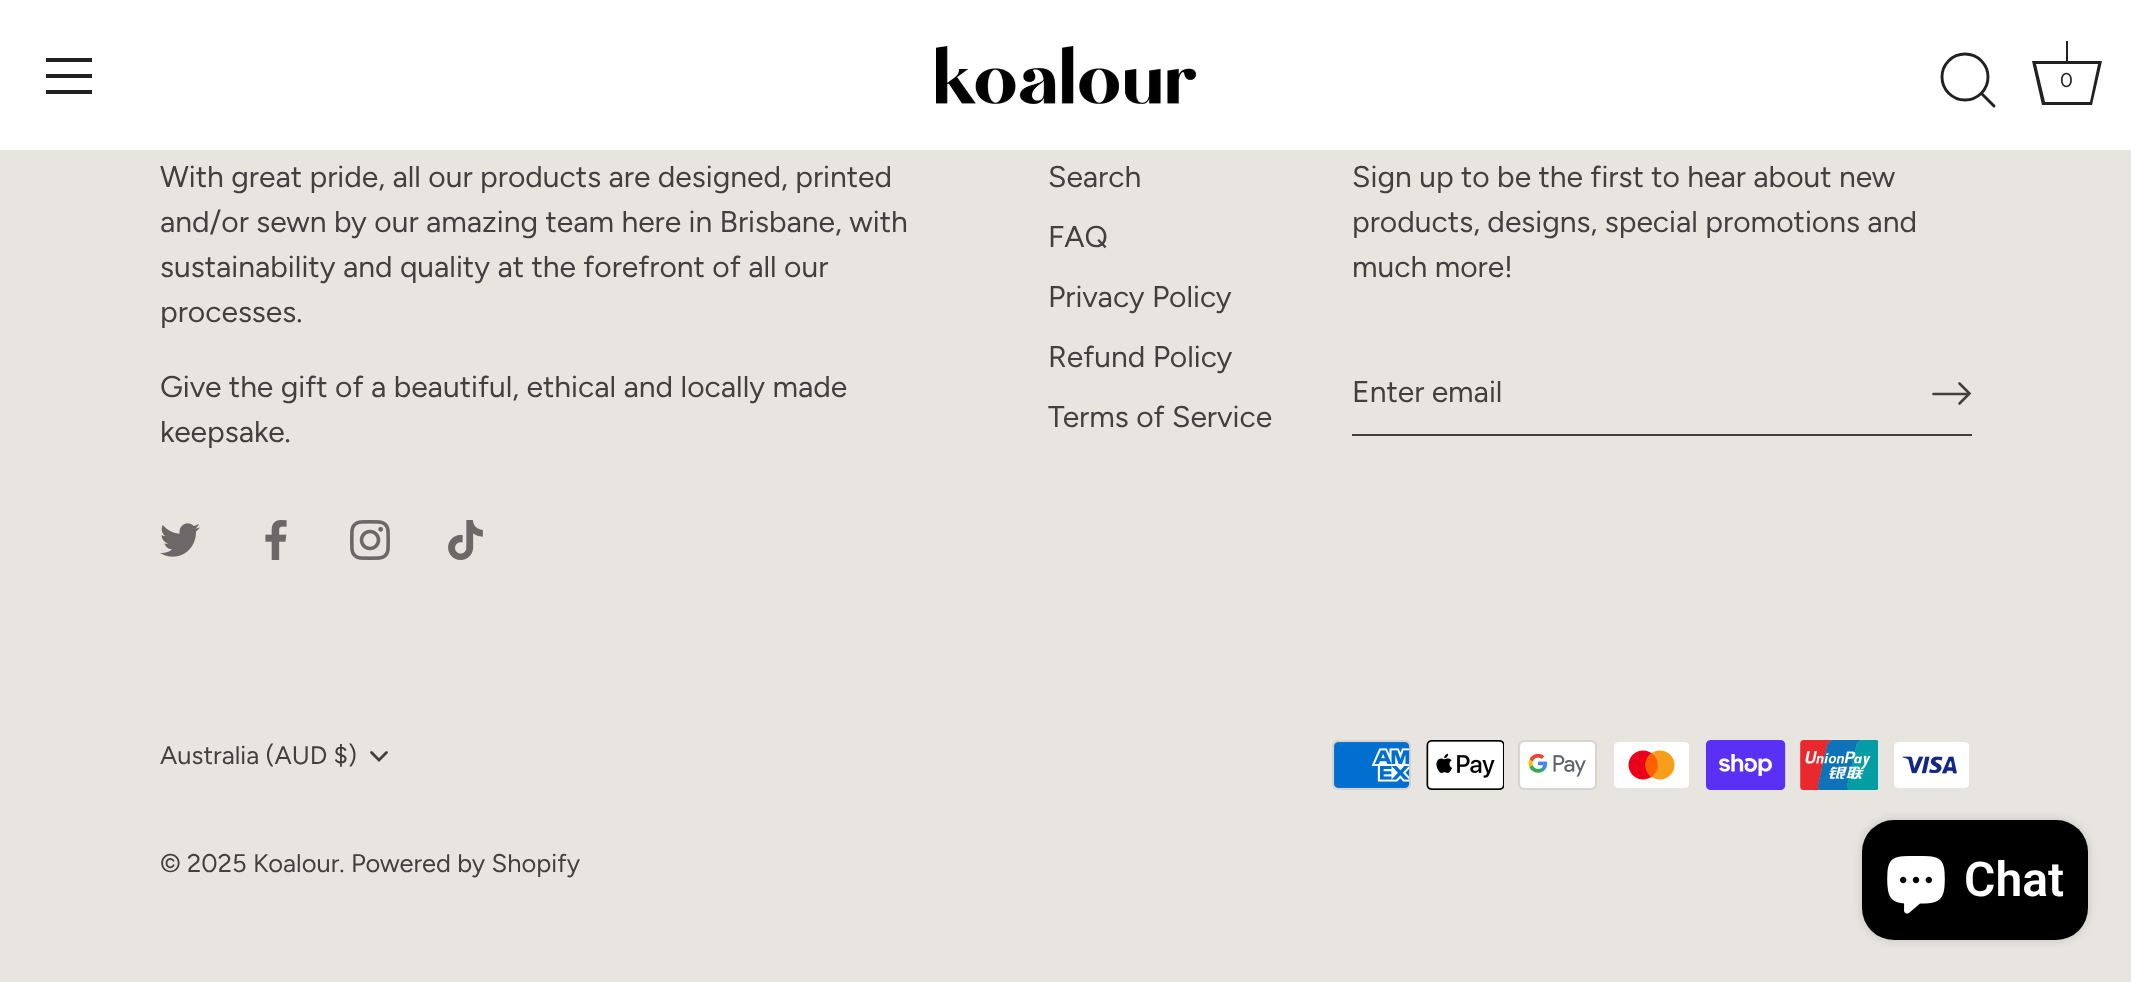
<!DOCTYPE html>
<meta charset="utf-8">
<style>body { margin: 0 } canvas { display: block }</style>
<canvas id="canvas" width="2131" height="982"></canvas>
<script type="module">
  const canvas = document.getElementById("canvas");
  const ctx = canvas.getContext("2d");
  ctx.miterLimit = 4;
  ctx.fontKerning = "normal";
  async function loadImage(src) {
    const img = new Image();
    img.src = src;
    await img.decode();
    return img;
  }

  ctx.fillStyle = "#e8e4df";
  ctx.fillRect(0, 0, 2131, 982);
  ctx.fillStyle = "#ffffff";
  ctx.fillRect(0, 0, 2131, 150);
  ctx.fillStyle = "#212121";
  ctx.fillRect(46, 58, 46, 4);
  ctx.fillRect(46, 74, 46, 4);
  ctx.fillRect(46, 90, 46, 4);
  ctx.drawImage(await loadImage("img1.png"), 936, 45, 260, 59);
  ctx.beginPath();
  ctx.arc(1965, 77, 23, 0, Math.PI * 2);
  ctx.strokeStyle = "#212121";
  ctx.lineWidth = 2.9;
  ctx.stroke();
  ctx.beginPath();
  ctx.moveTo(1994, 106);
  ctx.lineTo(1981.5, 93.5);
  ctx.lineCap = "round";
  ctx.lineJoin = "round";
  ctx.stroke();
  ctx.fillRect(2066, 41, 2, 20);
  ctx.beginPath();
  ctx.moveTo(2098, 64);
  ctx.lineTo(2090, 102);
  ctx.lineTo(2045, 102);
  ctx.lineTo(2036, 64);
  ctx.lineTo(2098, 64);
  ctx.moveTo(2102, 61);
  ctx.lineTo(2032, 61);
  ctx.lineTo(2042, 105);
  ctx.lineTo(2092, 105);
  ctx.closePath();
  ctx.fill();
  ctx.font = "20px Figtree";
  ctx.fillText("0", 2060, 87);
  ctx.font = "30px Figtree";
  ctx.fillStyle = "#423f3f";
  ctx.fillText("With great pride, all our products are designed, printed", 160, 187);
  ctx.fillText("and/or sewn by our amazing team here in Brisbane, with", 160, 232);
  ctx.fillText("sustainability and quality at the forefront of all our", 160, 277);
  ctx.fillText("processes.", 160, 322);
  ctx.fillText("Give the gift of a beautiful, ethical and locally made", 160, 397);
  ctx.fillText("keepsake.", 160, 442);
  ctx.drawImage(await loadImage("img2.png"), 160, 523, 40, 34);
  ctx.drawImage(await loadImage("img3.png"), 265, 520, 22, 40);
  ctx.drawImage(await loadImage("img4.png"), 350, 520, 40, 40);
  ctx.drawImage(await loadImage("img5.png"), 448, 520, 35, 40);
  ctx.fillText("Search", 1048, 187);
  ctx.fillText("FAQ", 1048, 247);
  ctx.fillText("Privacy Policy", 1048, 307);
  ctx.fillText("Refund Policy", 1048, 367);
  ctx.fillText("Terms of Service", 1048, 427);
  ctx.fillText("Sign up to be the first to hear about new", 1352, 187);
  ctx.fillText("products, designs, special promotions and", 1352, 232);
  ctx.fillText("much more!", 1352, 277);
  ctx.fillRect(1352, 434, 620, 2);
  ctx.fillText("Enter email", 1352, 402);
  ctx.beginPath();
  ctx.moveTo(1959.5, 403.5);
  ctx.lineTo(1969.5, 393.5);
  ctx.lineTo(1959.5, 383.5);
  ctx.strokeStyle = "#423f3f";
  ctx.lineWidth = 2.6;
  ctx.lineJoin = "miter";
  ctx.stroke();
  ctx.beginPath();
  ctx.moveTo(1968.5, 394);
  ctx.lineTo(1933.5, 394);
  ctx.lineJoin = "round";
  ctx.stroke();
  ctx.font = "25.5px Figtree";
  ctx.fillText("Australia (AUD $)", 160, 764);
  ctx.beginPath();
  ctx.moveTo(371.5, 752.5);
  ctx.lineTo(379, 760);
  ctx.lineTo(386.5, 752.5);
  ctx.lineWidth = 2.8;
  ctx.lineJoin = "miter";
  ctx.stroke();
  ctx.fillText("© 2025 Koalour. Powered by Shopify", 160, 872);
  ctx.drawImage(await loadImage("img6.png"), 1332, 740, 79, 50);
  ctx.drawImage(await loadImage("img7.png"), 1426, 740, 78, 50);
  ctx.drawImage(await loadImage("img8.png"), 1518, 740, 79, 50);
  ctx.drawImage(await loadImage("img9.png"), 1614, 742, 75, 46);
  ctx.drawImage(await loadImage("img10.png"), 1706, 740, 80, 50);
  ctx.drawImage(await loadImage("img11.png"), 1800, 740, 78, 50);
  ctx.drawImage(await loadImage("img12.png"), 1894, 742, 75, 46);
  ctx.fillStyle = "rgba(0, 0, 0, 0.15)";
  ctx.filter = "blur(5px)";
  ctx.beginPath();
  ctx.roundRect(1862, 820, 226, 120, 32);
  ctx.fill();
  ctx.filter = "none";
  ctx.fillStyle = "#000000";
  ctx.beginPath();
  ctx.roundRect(1862, 820, 226, 120, 32);
  ctx.fill();
  ctx.drawImage(await loadImage("img13.png"), 1887, 856, 58, 58);
  ctx.font = "600 48px Roboto";
  ctx.fillStyle = "#ffffff";
  ctx.fillText("Chat", 1964, 896);
</script>
